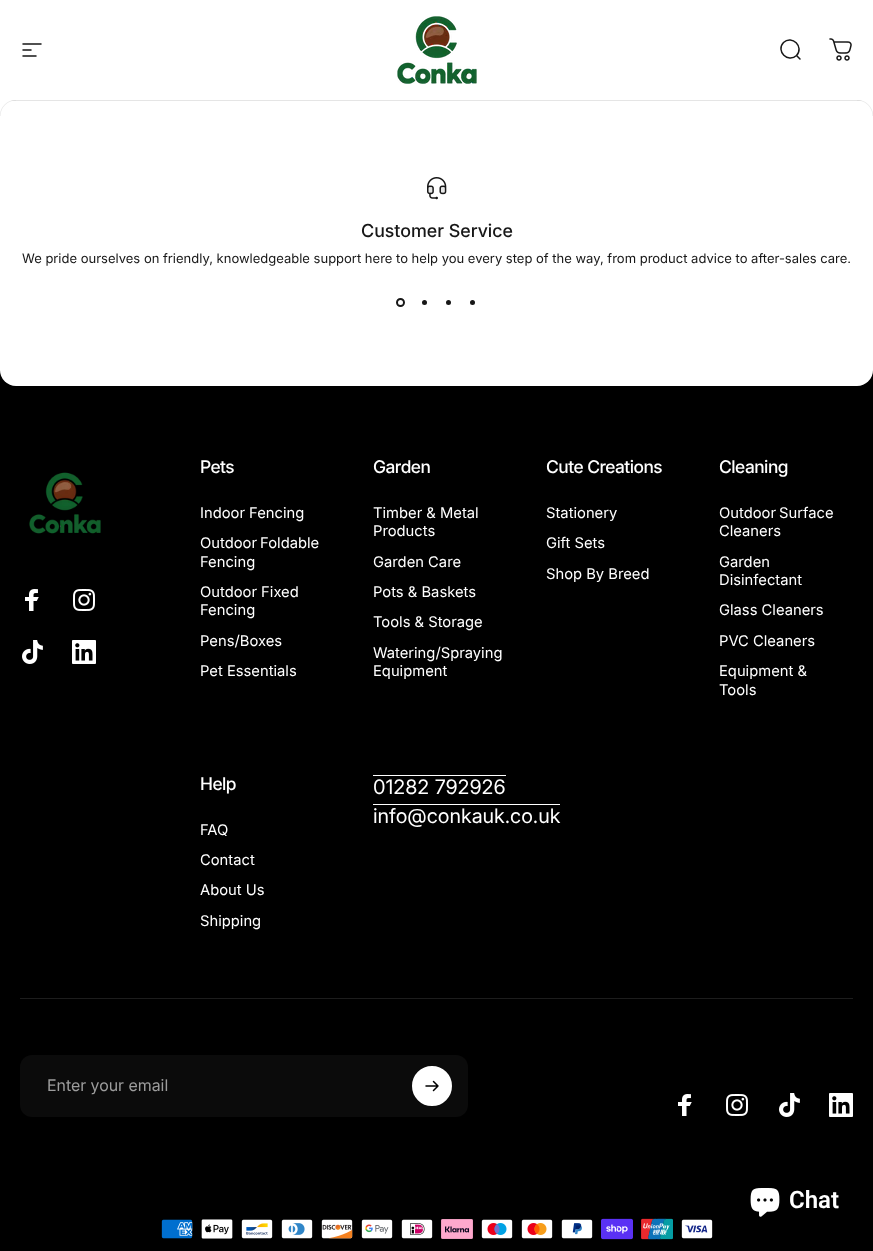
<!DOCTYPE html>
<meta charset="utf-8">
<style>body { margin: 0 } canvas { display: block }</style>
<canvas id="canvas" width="873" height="1251"></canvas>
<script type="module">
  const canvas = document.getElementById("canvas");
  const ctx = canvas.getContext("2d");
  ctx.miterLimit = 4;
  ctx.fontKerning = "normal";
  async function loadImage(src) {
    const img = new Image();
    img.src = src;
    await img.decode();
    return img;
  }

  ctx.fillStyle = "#ffffff";
  ctx.fillRect(0, 0, 873, 1251);
  ctx.beginPath();
  ctx.moveTo(23, 44);
  ctx.lineTo(41, 44);
  ctx.moveTo(23, 50);
  ctx.lineTo(31, 50);
  ctx.moveTo(23, 56);
  ctx.lineTo(36, 56);
  ctx.strokeStyle = "#171717";
  ctx.lineWidth = 1.5;
  ctx.lineCap = "round";
  ctx.stroke();
  ctx.drawImage(await loadImage("img1.png"), 397, 16, 80, 68);
  ctx.beginPath();
  ctx.moveTo(800, 59);
  ctx.lineTo(796.5, 55.5);
  ctx.moveTo(796.5, 55.5);
  ctx.bezierCurveTo(804.5, 47, 792, 34.5, 783.5, 42.5);
  ctx.bezierCurveTo(775.5, 51, 788, 63.5, 796.5, 55.5);
  ctx.closePath();
  ctx.stroke();
  ctx.drawImage(await loadImage("img2.png"), 829, 38, 23, 23);
  ctx.fillStyle = "#e5e5e5";
  ctx.fillRect(11, 100, 851, 1);
  ctx.fillStyle = "#000000";
  ctx.fillRect(0, 1173, 873, 78);
  ctx.beginPath();
  ctx.roundRect(0, 370, 873, 819, [0, 0, 16, 16]);
  ctx.fill();
  ctx.fillStyle = "#ffffff";
  ctx.beginPath();
  ctx.roundRect(0, 104, 873, 282, [0, 0, 16, 16]);
  ctx.fill();
  ctx.drawImage(await loadImage("img3.png"), 0, 100, 16, 16);
  ctx.drawImage(await loadImage("img4.png"), 857, 100, 16, 16);
  ctx.drawImage(await loadImage("img5.png"), 427, 177, 20, 23);
  ctx.font = "500 18px 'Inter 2'";
  ctx.fillStyle = "#171717";
  ctx.fillText("Customer Service", 361, 237);
  ctx.font = "13px Inter";
  ctx.fillText("We pride ourselves on friendly, knowledgeable support here to help you every step of the way, from product advice to after-sales care.", 22, 263);
  ctx.beginPath();
  ctx.arc(400.5, 302.5, 3.5, 0, Math.PI * 2);
  ctx.lineWidth = 2;
  ctx.stroke();
  ctx.beginPath();
  ctx.arc(424.5, 302.5, 2.5, 0, Math.PI * 2);
  ctx.fill();
  ctx.beginPath();
  ctx.arc(448.5, 302.5, 2.5, 0, Math.PI * 2);
  ctx.fill();
  ctx.beginPath();
  ctx.arc(472.5, 302.5, 2.5, 0, Math.PI * 2);
  ctx.fill();
  ctx.drawImage(await loadImage("img6.png"), 29, 472, 72, 62);
  ctx.drawImage(await loadImage("img7.png"), 25, 589, 14, 22);
  ctx.drawImage(await loadImage("img8.png"), 73, 589, 22, 22);
  ctx.drawImage(await loadImage("img9.png"), 22, 640, 21, 24);
  ctx.drawImage(await loadImage("img10.png"), 72, 640, 24, 24);
  ctx.letterSpacing = "-0.5px";
  ctx.font = "500 17.5px Inter";
  ctx.fillStyle = "#ffffff";
  ctx.fillText("Pets", 200, 473);
  ctx.letterSpacing = "0px";
  ctx.font = "14.75px Inter";
  ctx.fillText("Indoor Fencing", 200, 518);
  ctx.wordSpacing = "-1px";
  ctx.fillText("Outdoor Foldable", 200, 548);
  ctx.wordSpacing = "0px";
  ctx.fillText("Fencing", 200, 567);
  ctx.fillText("Outdoor Fixed", 200, 597);
  ctx.fillText("Fencing", 200, 615);
  ctx.fillText("Pens/Boxes", 200, 646);
  ctx.fillText("Pet Essentials", 200, 676);
  ctx.letterSpacing = "-0.5px";
  ctx.font = "500 17.5px Inter";
  ctx.fillText("Garden", 373, 473);
  ctx.letterSpacing = "0px";
  ctx.font = "14.75px Inter";
  ctx.fillText("Timber & Metal", 373, 518);
  ctx.fillText("Products", 373, 536);
  ctx.fillText("Garden Care", 373, 567);
  ctx.fillText("Pots & Baskets", 373, 597);
  ctx.fillText("Tools & Storage", 373, 627);
  ctx.fillText("Watering/Spraying", 373, 658);
  ctx.fillText("Equipment", 373, 676);
  ctx.letterSpacing = "-0.5px";
  ctx.font = "500 17.5px Inter";
  ctx.fillText("Cute Creations", 546, 473);
  ctx.letterSpacing = "0px";
  ctx.font = "14.75px Inter";
  ctx.fillText("Stationery", 546, 518);
  ctx.fillText("Gift Sets", 546, 548);
  ctx.fillText("Shop By Breed", 546, 579);
  ctx.letterSpacing = "-0.5px";
  ctx.font = "500 17.5px Inter";
  ctx.fillText("Cleaning", 719, 473);
  ctx.letterSpacing = "0px";
  ctx.wordSpacing = "-1px";
  ctx.font = "14.75px Inter";
  ctx.fillText("Outdoor Surface", 719, 518);
  ctx.wordSpacing = "0px";
  ctx.fillText("Cleaners", 719, 536);
  ctx.fillText("Garden", 719, 567);
  ctx.fillText("Disinfectant", 719, 585);
  ctx.fillText("Glass Cleaners", 719, 615);
  ctx.fillText("PVC Cleaners", 719, 646);
  ctx.fillText("Equipment &", 719, 676);
  ctx.fillText("Tools", 719, 695);
  ctx.letterSpacing = "-0.5px";
  ctx.font = "500 17.5px Inter";
  ctx.fillText("Help", 200, 790);
  ctx.letterSpacing = "0px";
  ctx.font = "14.75px Inter";
  ctx.fillText("FAQ", 200, 835);
  ctx.fillText("Contact", 200, 865);
  ctx.fillText("About Us", 200, 895);
  ctx.fillText("Shipping", 200, 926);
  ctx.fillRect(373, 775, 133, 1);
  ctx.font = "20px 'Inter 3'";
  ctx.fillText("01282 792926", 373, 794);
  ctx.fillRect(373, 804, 187, 1);
  ctx.fillText("info@conkauk.co.uk", 373, 823);
  ctx.fillStyle = "#1d1d1d";
  ctx.fillRect(20, 998, 833, 1);
  ctx.fillStyle = "#0b0b0b";
  ctx.beginPath();
  ctx.roundRect(20, 1055, 448, 62, 12);
  ctx.fill();
  ctx.font = "16px 'Inter 2'";
  ctx.fillStyle = "#9d9d9d";
  ctx.fillText("Enter your email", 47, 1091);
  ctx.fillStyle = "#ffffff";
  ctx.beginPath();
  ctx.arc(432, 1086, 19, 0, Math.PI * 2);
  ctx.fill();
  ctx.strokeStyle = "#ffffff";
  ctx.stroke();
  ctx.beginPath();
  ctx.moveTo(426, 1086);
  ctx.lineTo(438, 1086);
  ctx.moveTo(438, 1086);
  ctx.lineTo(433.5, 1081.5);
  ctx.moveTo(438, 1086);
  ctx.lineTo(433.5, 1090.5);
  ctx.strokeStyle = "#000000";
  ctx.lineWidth = 1.5;
  ctx.lineJoin = "round";
  ctx.stroke();
  ctx.drawImage(await loadImage("img7.png"), 678, 1094, 14, 22);
  ctx.drawImage(await loadImage("img8.png"), 726, 1094, 22, 22);
  ctx.drawImage(await loadImage("img9.png"), 779, 1093, 21, 24);
  ctx.drawImage(await loadImage("img10.png"), 829, 1093, 24, 24);
  ctx.drawImage(await loadImage("img11.png"), 161, 1219, 32, 20);
  ctx.drawImage(await loadImage("img12.png"), 201, 1219, 32, 20);
  ctx.drawImage(await loadImage("img13.png"), 241, 1219, 32, 20);
  ctx.drawImage(await loadImage("img14.png"), 281, 1219, 32, 20);
  ctx.drawImage(await loadImage("img15.png"), 321, 1219, 32, 20);
  ctx.drawImage(await loadImage("img16.png"), 361, 1219, 32, 20);
  ctx.drawImage(await loadImage("img17.png"), 401, 1219, 32, 20);
  ctx.drawImage(await loadImage("img18.png"), 441, 1219, 32, 20);
  ctx.drawImage(await loadImage("img19.png"), 481, 1219, 32, 20);
  ctx.drawImage(await loadImage("img20.png"), 521, 1219, 32, 20);
  ctx.drawImage(await loadImage("img21.png"), 561, 1219, 32, 20);
  ctx.drawImage(await loadImage("img22.png"), 601, 1218, 32, 22);
  ctx.drawImage(await loadImage("img23.png"), 641, 1218, 32, 22);
  ctx.drawImage(await loadImage("img24.png"), 681, 1219, 32, 20);
  ctx.drawImage(await loadImage("img25.png"), 750, 1188, 30, 29);
  ctx.font = "600 24px Roboto";
  ctx.fillText("Chat", 789, 1208);
</script>
